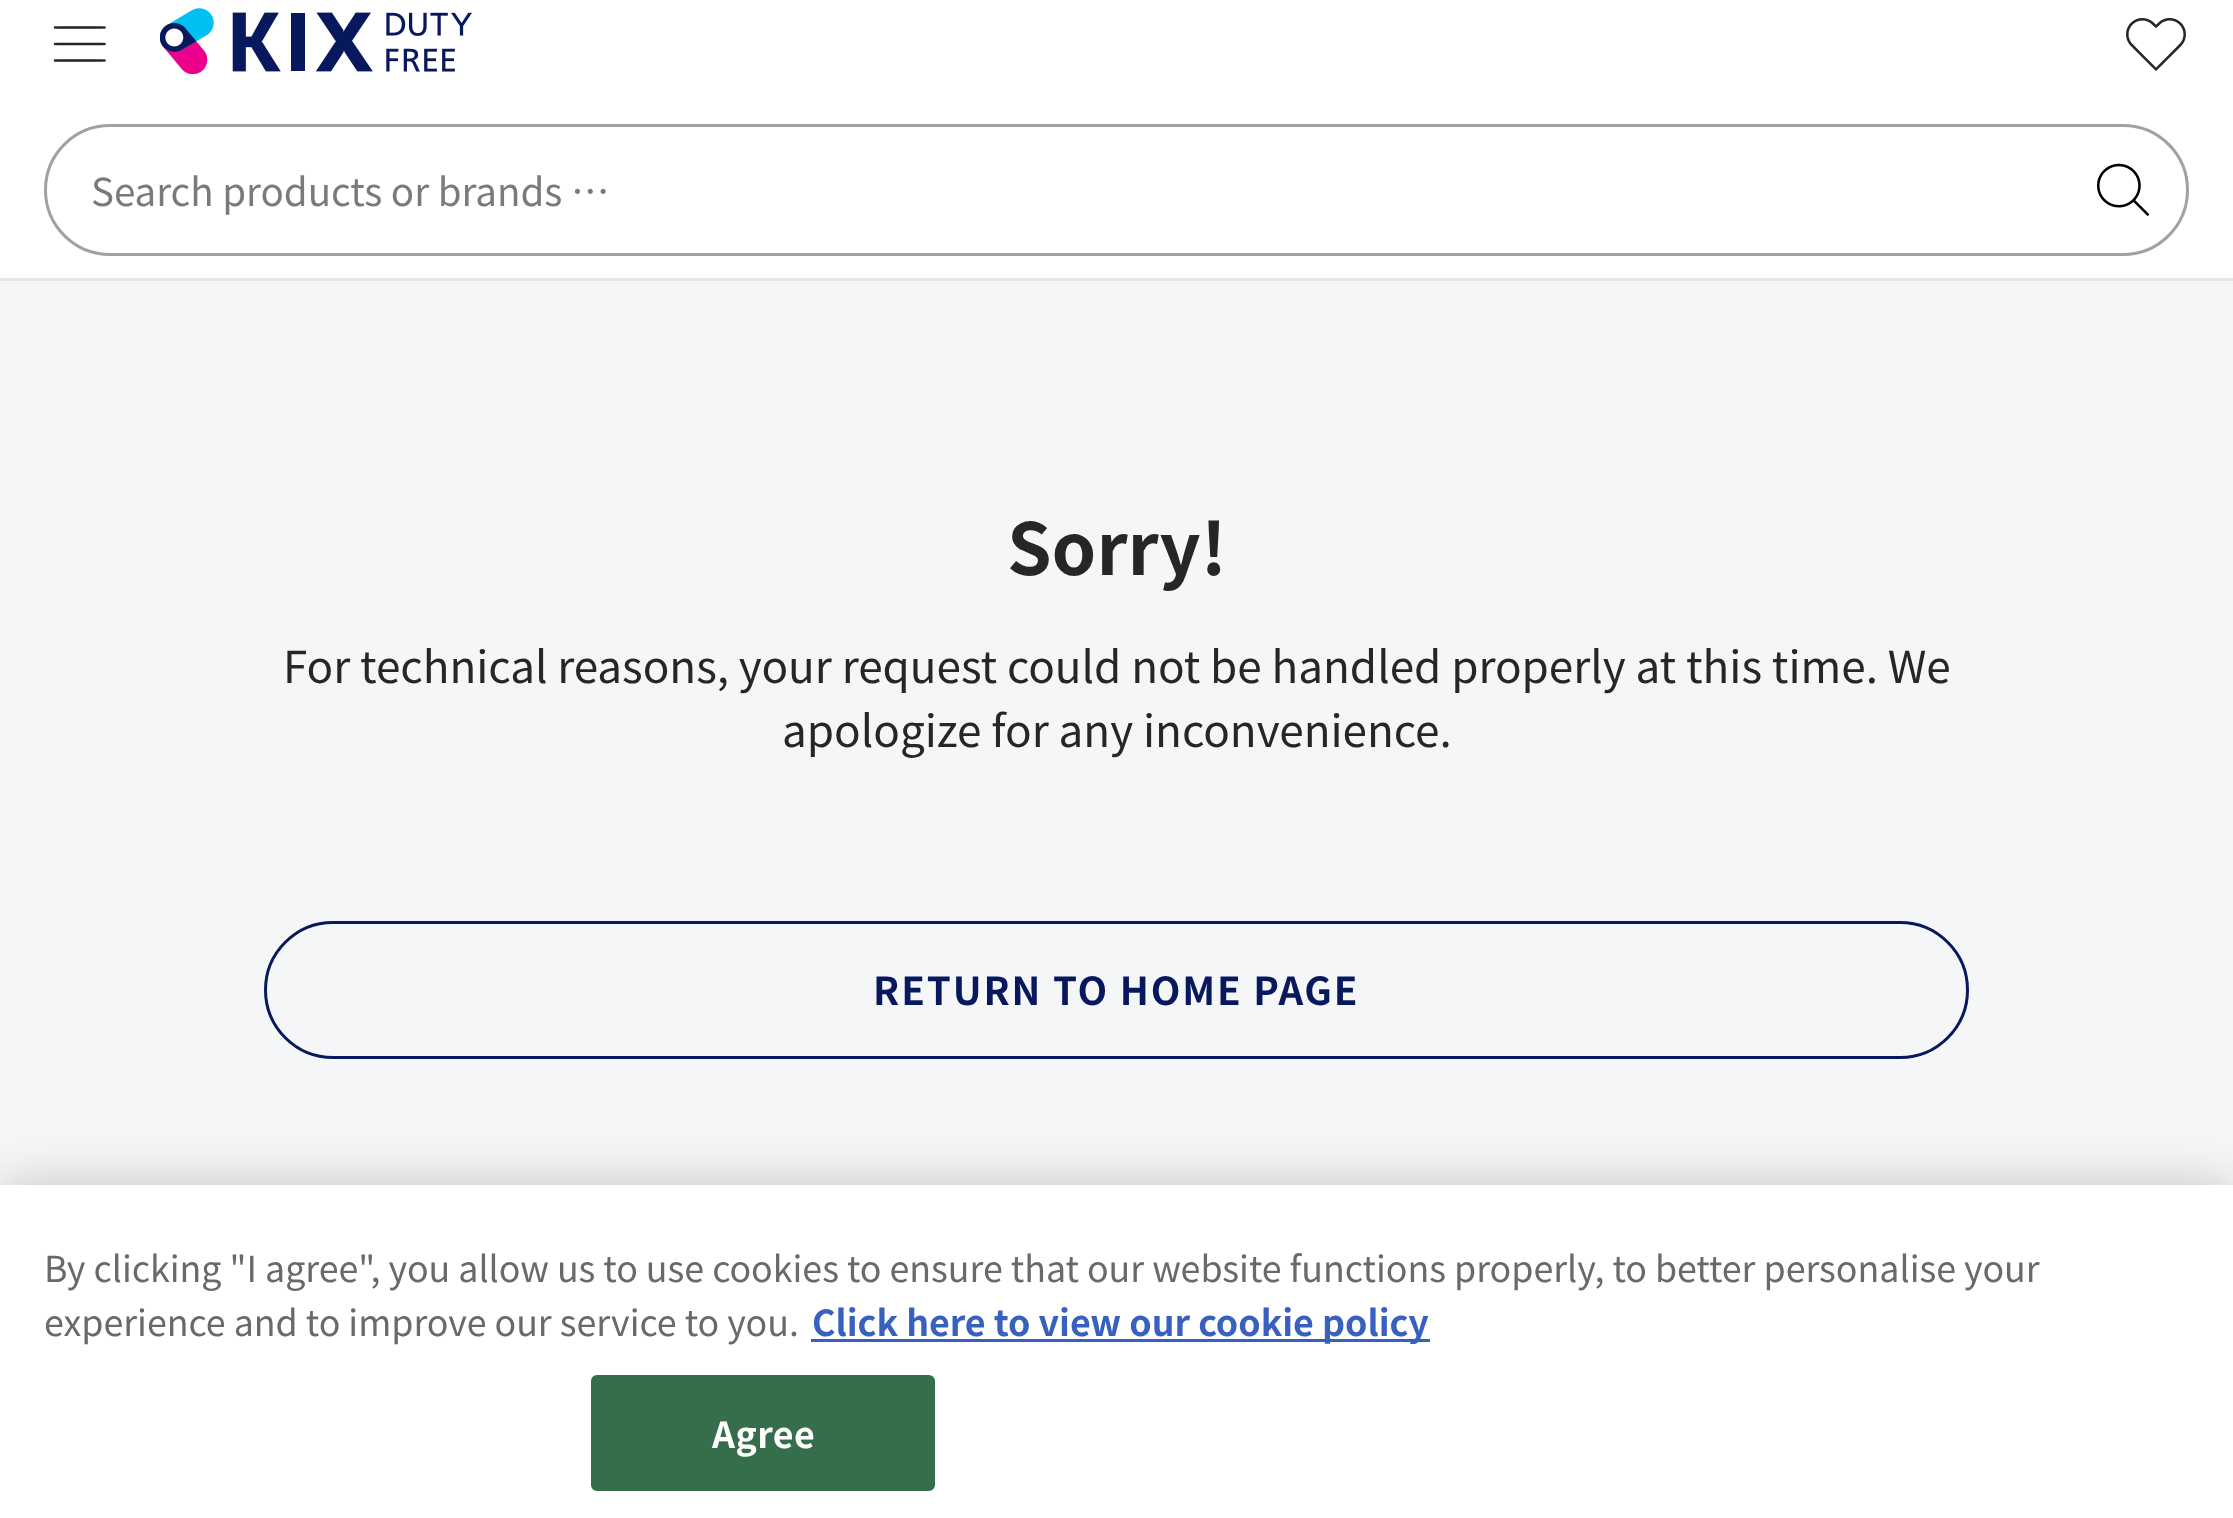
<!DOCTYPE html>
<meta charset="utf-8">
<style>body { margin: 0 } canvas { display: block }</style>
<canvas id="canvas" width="2233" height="1518"></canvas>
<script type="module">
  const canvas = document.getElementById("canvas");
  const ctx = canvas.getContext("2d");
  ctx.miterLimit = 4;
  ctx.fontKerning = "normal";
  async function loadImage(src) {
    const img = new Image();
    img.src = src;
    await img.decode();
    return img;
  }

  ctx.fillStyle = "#ffffff";
  ctx.fillRect(0, 0, 2233, 1518);
  ctx.fillStyle = "#e6e6e6";
  ctx.fillRect(0, 278, 2233, 3);
  ctx.drawImage(await loadImage("img1.png"), 53, 26, 53, 36);
  ctx.drawImage(await loadImage("img2.png"), 160, 8, 312, 66);
  ctx.drawImage(await loadImage("img3.png"), 2126, 18, 60, 53);
  ctx.beginPath();
  ctx.roundRect(45.5, 125.5, 2142, 129, 64.5);
  ctx.strokeStyle = "#a1a1a1";
  ctx.lineWidth = 3;
  ctx.stroke();
  ctx.font = "38.5px Noto Sans JP";
  ctx.fillStyle = "#7a7a7a";
  ctx.fillText("Search products or brands …", 91, 206);
  ctx.drawImage(await loadImage("img4.png"), 2096, 163, 54, 53);
  ctx.fillStyle = "#f5f6f8";
  ctx.fillRect(0, 281, 2233, 904);
  ctx.font = "bold 71.5px Noto Sans JP";
  ctx.fillStyle = "#262626";
  ctx.fillText("Sorry!", 1007, 575);
  ctx.font = "44px Noto Sans JP";
  ctx.fillText("For technical reasons, your request could not be handled properly at this time. We", 283, 683);
  ctx.fillText("apologize for any inconvenience.", 782, 747);
  ctx.beginPath();
  ctx.roundRect(265.5, 922.5, 1702, 135, 67.5);
  ctx.strokeStyle = "#07185c";
  ctx.stroke();
  ctx.letterSpacing = "1.9px";
  ctx.font = "bold 38.5px Noto Sans JP";
  ctx.fillStyle = "#07185c";
  ctx.fillText("RETURN TO HOME PAGE", 873, 1005);
  ctx.fillStyle = "rgba(0, 0, 0, 0.2)";
  ctx.filter = "blur(25px)";
  ctx.beginPath();
  ctx.rect(0, 1185, 2233, 333);
  ctx.fill();
  ctx.filter = "none";
  ctx.fillStyle = "#ffffff";
  ctx.fillRect(0, 1185, 2233, 333);
  ctx.letterSpacing = "0px";
  ctx.font = "35.77px Noto Sans JP";
  ctx.fillStyle = "#696969";
  ctx.fillText("By clicking \"I agree\", you allow us to use cookies to ensure that our website functions properly, to better personalise your", 44, 1282);
  ctx.fillText("experience and to improve our service to you.", 44, 1336);
  ctx.fillStyle = "#3860be";
  ctx.fillRect(811, 1339, 619, 3);
  ctx.font = "bold 35.77px Noto Sans JP";
  ctx.fillText("Click here to view our cookie policy", 812, 1336);
  ctx.fillStyle = "#346e4a";
  ctx.beginPath();
  ctx.roundRect(592.5, 1376.5, 341, 113, 4.5);
  ctx.fill();
  ctx.strokeStyle = "#346e4a";
  ctx.stroke();
  ctx.letterSpacing = "0.5px";
  ctx.fillStyle = "#ffffff";
  ctx.fillText("Agree", 712, 1448);
</script>
